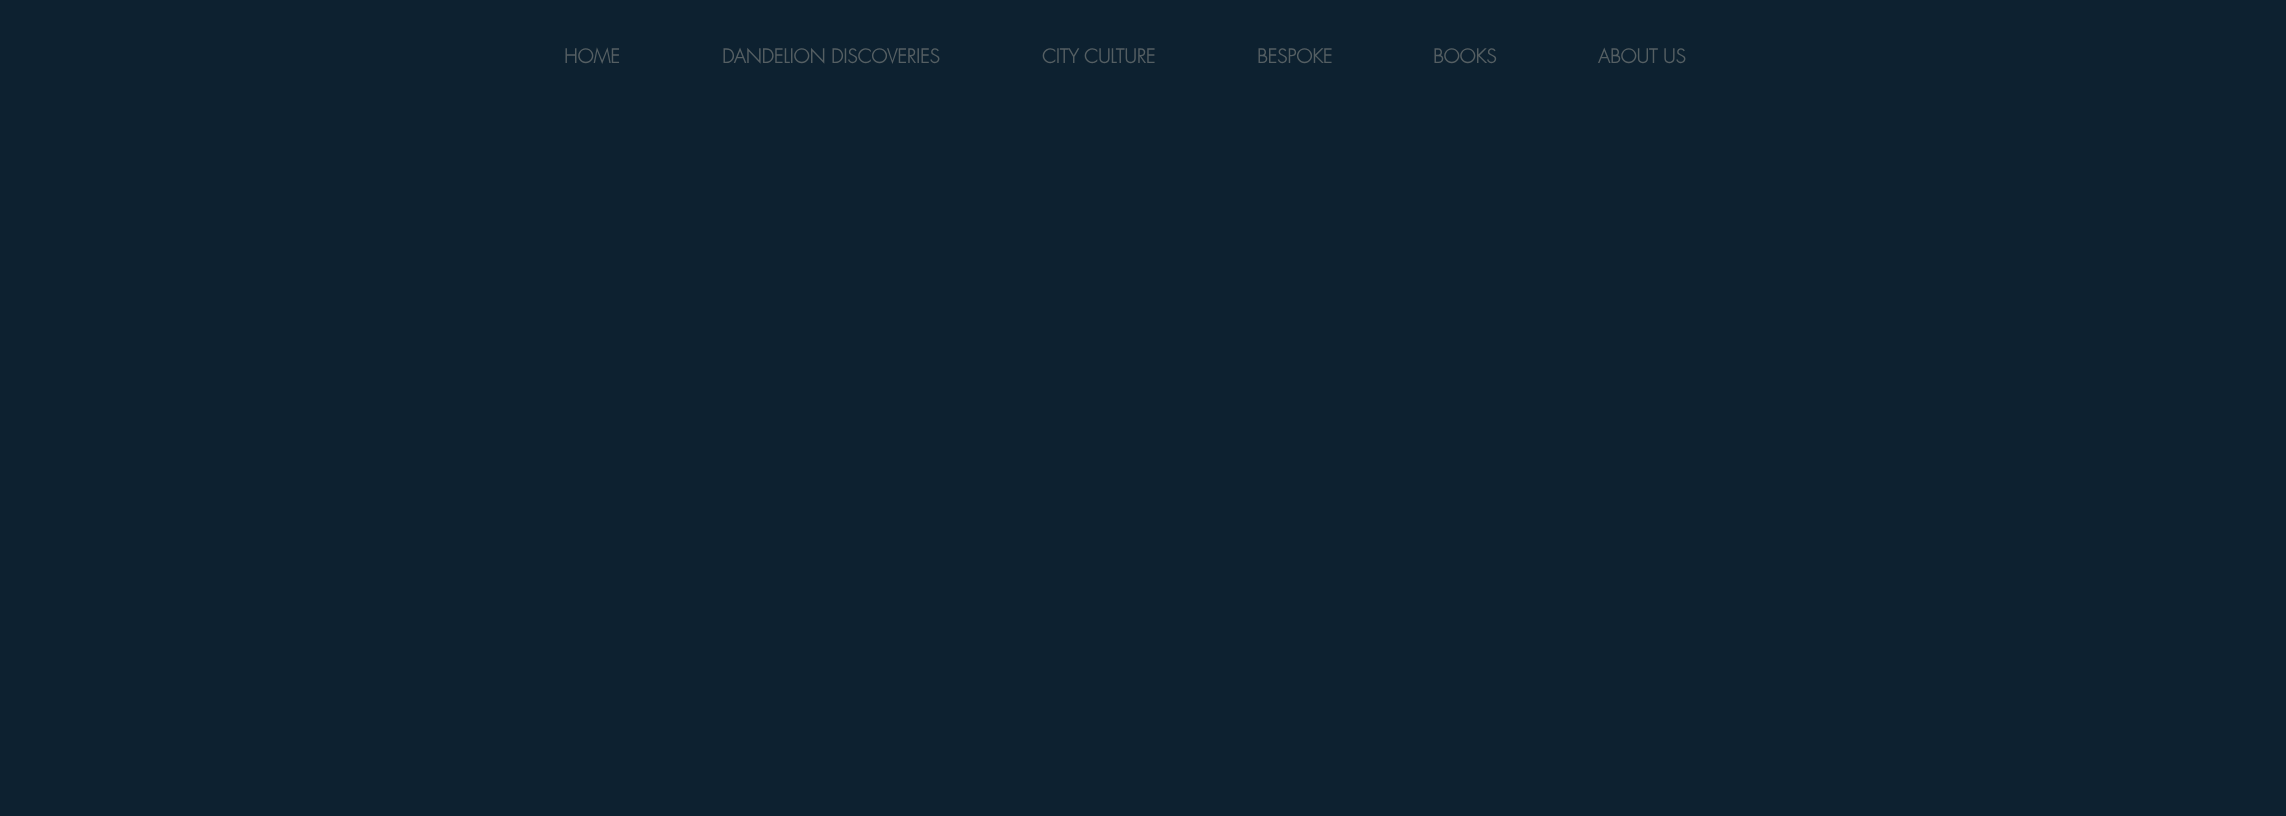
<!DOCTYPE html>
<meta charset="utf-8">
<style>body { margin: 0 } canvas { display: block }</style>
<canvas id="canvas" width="2286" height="816"></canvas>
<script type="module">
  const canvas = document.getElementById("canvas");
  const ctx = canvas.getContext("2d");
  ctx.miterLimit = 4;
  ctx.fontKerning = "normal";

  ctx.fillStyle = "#0d2130";
  ctx.fillRect(0, 0, 2286, 816);
  ctx.font = "bold 18.75px futura";
  ctx.fillStyle = "#555f63";
  ctx.fillText("HOME", 564, 63);
  ctx.fillText("DANDELION DISCOVERIES", 722, 63);
  ctx.fillText("CITY CULTURE", 1042, 63);
  ctx.fillText("BESPOKE", 1257, 63);
  ctx.fillText("BOOKS", 1433, 63);
  ctx.fillText("ABOUT US", 1598, 63);
</script>
